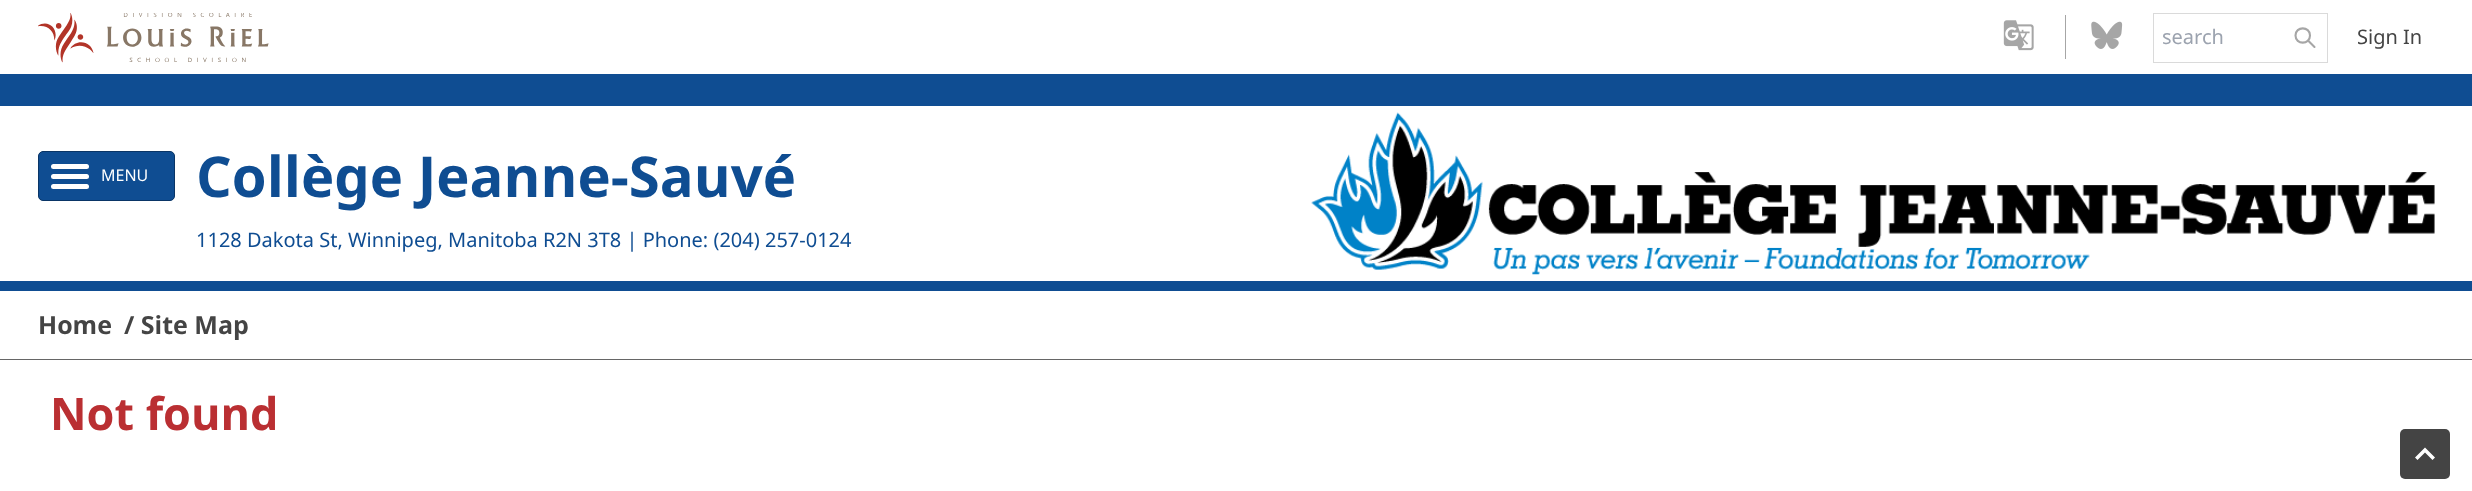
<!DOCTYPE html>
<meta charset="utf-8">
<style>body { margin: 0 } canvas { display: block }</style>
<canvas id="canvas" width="2472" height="491"></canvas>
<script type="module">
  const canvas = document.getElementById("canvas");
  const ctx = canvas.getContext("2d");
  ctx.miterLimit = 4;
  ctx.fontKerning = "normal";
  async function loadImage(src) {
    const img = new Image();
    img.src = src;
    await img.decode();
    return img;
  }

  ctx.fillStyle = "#ffffff";
  ctx.fillRect(0, 0, 2472, 491);
  ctx.fillStyle = "#0f4d92";
  ctx.fillRect(0, 281, 2472, 10);
  ctx.fillRect(0, 74, 2472, 32);
  ctx.drawImage(await loadImage("img1.png"), 38, 13, 231, 50);
  ctx.drawImage(await loadImage("img2.png"), 2003, 20, 31, 31);
  ctx.fillStyle = "#a6a6a6";
  ctx.fillRect(2065, 15, 1, 44);
  ctx.drawImage(await loadImage("img3.png"), 2091, 21, 32, 28);
  ctx.strokeStyle = "#dadada";
  ctx.strokeRect(2153.5, 13.5, 174, 49);
  ctx.font = "20px Noto Sans";
  ctx.fillStyle = "#9ca3af";
  ctx.fillText("search", 2162, 44);
  ctx.beginPath();
  ctx.moveTo(2314.5, 47);
  ctx.lineTo(2308, 40.5);
  ctx.moveTo(2310, 35.5);
  ctx.bezierCurveTo(2310, 45, 2295.5, 45, 2295.5, 35.5);
  ctx.bezierCurveTo(2295.5, 26, 2310, 26, 2310, 35.5);
  ctx.closePath();
  ctx.strokeStyle = "#a6a6a6";
  ctx.lineWidth = 2.1;
  ctx.lineCap = "round";
  ctx.lineJoin = "round";
  ctx.stroke();
  ctx.fillStyle = "#444444";
  ctx.fillText("Sign In", 2357, 44);
  ctx.fillStyle = "#0f4d92";
  ctx.beginPath();
  ctx.roundRect(38.5, 151.5, 136, 49, 4.5);
  ctx.fill();
  ctx.strokeStyle = "#0a3566";
  ctx.lineWidth = 1;
  ctx.lineJoin = "miter";
  ctx.stroke();
  ctx.fillStyle = "#ffffff";
  ctx.beginPath();
  ctx.roundRect(51, 164, 38, 5, 2.5);
  ctx.fill();
  ctx.beginPath();
  ctx.roundRect(51, 174, 38, 5, 2.5);
  ctx.fill();
  ctx.beginPath();
  ctx.roundRect(51, 184, 38, 5, 2.5);
  ctx.fill();
  ctx.font = "16px Noto Sans";
  ctx.fillText("MENU", 101, 181);
  ctx.font = "bold 56.25px Noto Sans";
  ctx.fillStyle = "#0f4d92";
  ctx.fillText("Collège Jeanne-Sauvé", 196, 197);
  ctx.font = "20px Noto Sans";
  ctx.fillText("1128 Dakota St, Winnipeg, Manitoba R2N 3T8 | Phone: (204) 257-0124", 196, 247);
  ctx.drawImage(await loadImage("img4.png"), 1311, 112, 1124, 163);
  ctx.fillStyle = "#666666";
  ctx.fillRect(0, 359, 2472, 1);
  ctx.font = "bold 25px Noto Sans";
  ctx.fillStyle = "#444444";
  ctx.fillText("Home", 38, 334);
  ctx.fillText("/ Site Map", 124, 334);
  ctx.font = "bold 45px Noto Sans";
  ctx.fillStyle = "#ba2f32";
  ctx.fillText("Not found", 50, 430);
  ctx.fillStyle = "#444444";
  ctx.beginPath();
  ctx.roundRect(2400, 429, 50, 50, 5);
  ctx.fill();
  ctx.fillStyle = "#ffffff";
  ctx.beginPath();
  ctx.moveTo(2415, 457.5);
  ctx.lineTo(2417.5, 460);
  ctx.lineTo(2425, 452.5);
  ctx.lineTo(2432.5, 460);
  ctx.lineTo(2435, 457.5);
  ctx.lineTo(2425, 447.5);
  ctx.closePath();
  ctx.fill();
</script>
